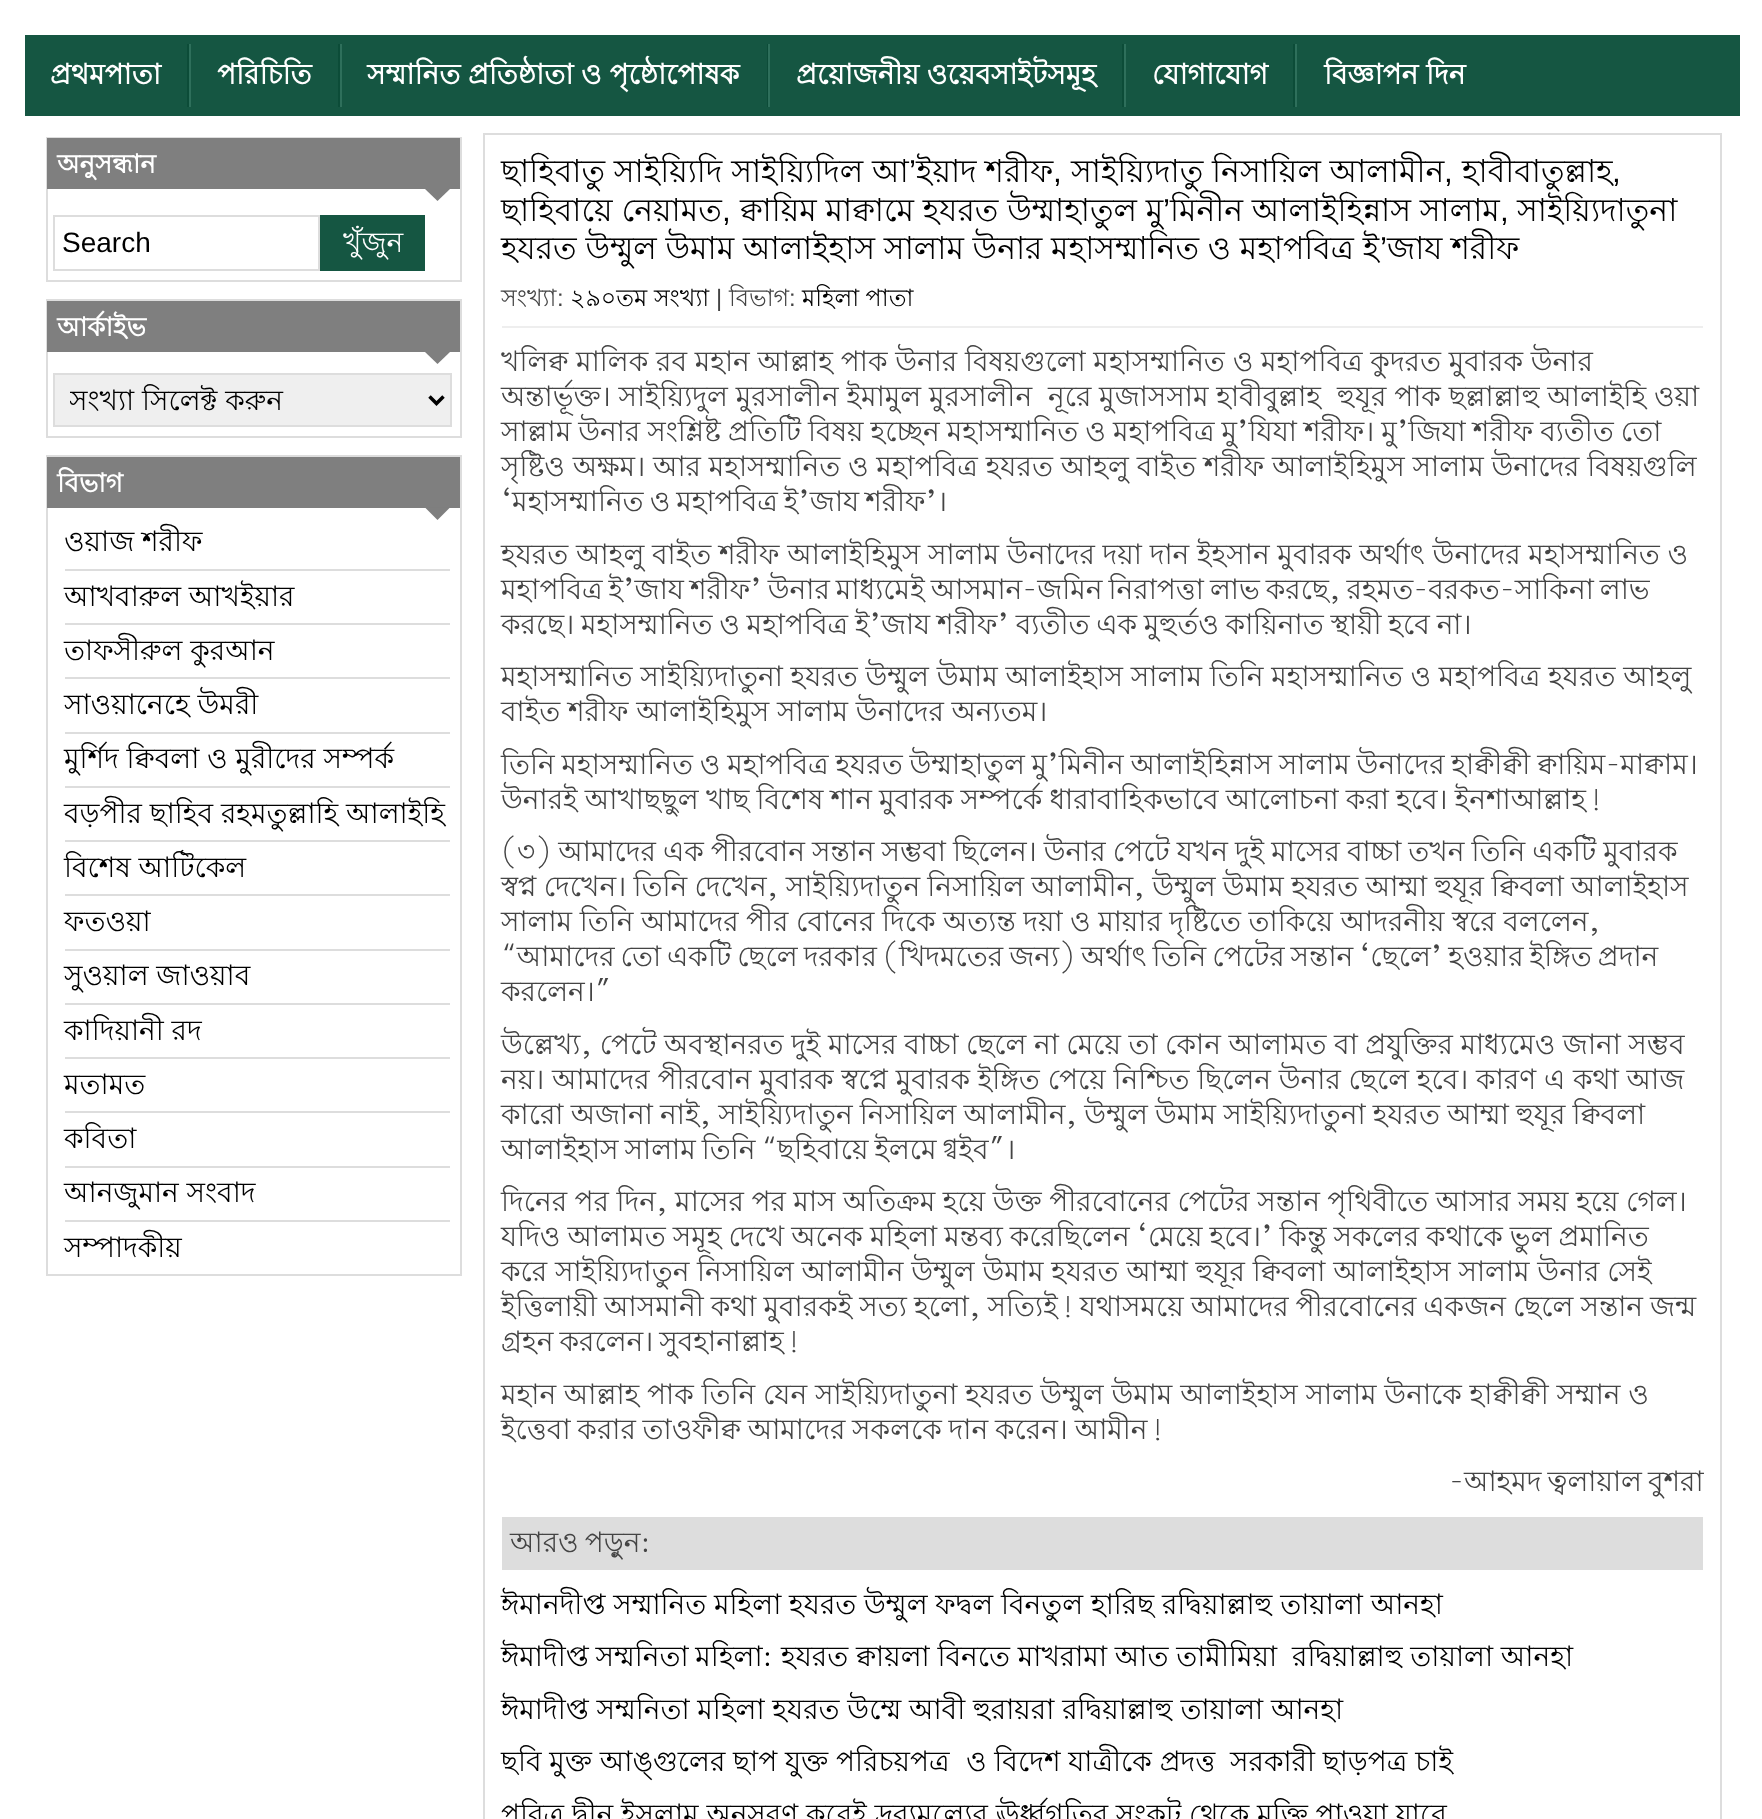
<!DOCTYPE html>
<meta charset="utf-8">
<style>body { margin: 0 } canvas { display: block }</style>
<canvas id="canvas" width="1762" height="1819"></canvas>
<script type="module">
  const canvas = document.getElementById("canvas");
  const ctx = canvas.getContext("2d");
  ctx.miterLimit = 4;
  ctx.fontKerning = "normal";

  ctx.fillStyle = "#ffffff";
  ctx.fillRect(0, 0, 1762, 1819);
  ctx.fillStyle = "#155642";
  ctx.fillRect(25, 35, 1715, 81);
  ctx.fillStyle = "#0c4c38";
  ctx.fillRect(187, 44, 2, 63);
  ctx.font = "bold 28px Lohit Bengali";
  ctx.fillStyle = "#ffffff";
  ctx.fillText("প্রথমপাতা", 50, 84);
  ctx.fillStyle = "#0c4c38";
  ctx.fillRect(338, 44, 2, 63);
  ctx.fillStyle = "#2e6f5b";
  ctx.fillRect(189, 44, 2, 63);
  ctx.fillStyle = "#ffffff";
  ctx.fillText("পরিচিতি", 217, 84);
  ctx.fillStyle = "#0c4c38";
  ctx.fillRect(767, 44, 1, 63);
  ctx.fillStyle = "#2e6f5b";
  ctx.fillRect(340, 44, 2, 63);
  ctx.fillStyle = "#ffffff";
  ctx.fillText("সম্মানিত প্রতিষ্ঠাতা ও পৃষ্ঠোপোষক", 367, 84);
  ctx.fillStyle = "#0c4c38";
  ctx.fillRect(1122, 44, 2, 63);
  ctx.fillStyle = "#2e6f5b";
  ctx.fillRect(768, 44, 2, 63);
  ctx.fillStyle = "#ffffff";
  ctx.fillText("প্রয়োজনীয় ওয়েবসাইটসমূহ", 796, 84);
  ctx.fillStyle = "#0c4c38";
  ctx.fillRect(1293, 44, 2, 63);
  ctx.fillStyle = "#2e6f5b";
  ctx.fillRect(1124, 44, 2, 63);
  ctx.fillStyle = "#ffffff";
  ctx.fillText("যোগাযোগ", 1152, 84);
  ctx.fillStyle = "#2e6f5b";
  ctx.fillRect(1295, 44, 2, 63);
  ctx.fillStyle = "#ffffff";
  ctx.fillText("বিজ্ঞাপন দিন", 1324, 84);
  ctx.strokeStyle = "#dddddd";
  ctx.lineWidth = 2;
  ctx.strokeRect(47, 138, 414, 143);
  ctx.fillStyle = "#7f7f7f";
  ctx.fillRect(47, 138, 413, 51);
  ctx.font = "bold 26px Lohit Bengali";
  ctx.fillStyle = "#ffffff";
  ctx.fillText("অনুসন্ধান", 57, 173);
  ctx.fillStyle = "#7f7f7f";
  ctx.beginPath();
  ctx.moveTo(425, 189);
  ctx.lineTo(450, 189);
  ctx.lineTo(437.5, 201);
  ctx.closePath();
  ctx.fill();
  ctx.strokeRect(54, 216, 265, 54);
  ctx.font = "28px Liberation Sans";
  ctx.fillStyle = "#000000";
  ctx.fillText("Search", 62, 252);
  ctx.fillStyle = "#155642";
  ctx.fillRect(320, 215, 105, 56);
  ctx.font = "28px Lohit Bengali";
  ctx.fillStyle = "#ffffff";
  ctx.fillText("খুঁজুন", 343, 252);
  ctx.strokeRect(47, 300, 414, 137);
  ctx.fillStyle = "#7f7f7f";
  ctx.fillRect(47, 301, 413, 51);
  ctx.font = "bold 26px Lohit Bengali";
  ctx.fillStyle = "#ffffff";
  ctx.fillText("আর্কাইভ", 57, 336);
  ctx.fillStyle = "#7f7f7f";
  ctx.beginPath();
  ctx.moveTo(425, 352);
  ctx.lineTo(450, 352);
  ctx.lineTo(437.5, 364);
  ctx.closePath();
  ctx.fill();
  ctx.fillStyle = "#efefef";
  ctx.beginPath();
  ctx.rect(54, 374, 397, 52);
  ctx.fill();
  ctx.stroke();
  ctx.beginPath();
  ctx.moveTo(429.5, 396.5);
  ctx.lineTo(436.5, 403.5);
  ctx.lineTo(443.5, 396.5);
  ctx.strokeStyle = "#000000";
  ctx.lineWidth = 3.5;
  ctx.stroke();
  ctx.save();
  ctx.beginPath();
  ctx.rect(70, 383, 343, 34);
  ctx.clip();
  ctx.font = "28px Lohit Bengali";
  ctx.fillStyle = "#000000";
  ctx.fillText("সংখ্যা সিলেক্ট করুন", 69, 410);
  ctx.restore();
  ctx.strokeStyle = "#dddddd";
  ctx.lineWidth = 2;
  ctx.strokeRect(47, 456, 414, 819);
  ctx.fillStyle = "#7f7f7f";
  ctx.fillRect(47, 457, 413, 51);
  ctx.fillStyle = "#ffffff";
  ctx.fillText("বিভাগ", 57, 492);
  ctx.fillStyle = "#7f7f7f";
  ctx.beginPath();
  ctx.moveTo(425, 507.5);
  ctx.lineTo(450, 507.5);
  ctx.lineTo(437.5, 520);
  ctx.closePath();
  ctx.fill();
  ctx.fillStyle = "#dddddd";
  ctx.fillRect(65, 569, 385, 2);
  ctx.font = "28px Lohit Bengali";
  ctx.fillStyle = "#000000";
  ctx.fillText("ওয়াজ শরীফ", 64, 551);
  ctx.fillStyle = "#dddddd";
  ctx.fillRect(65, 623, 385, 2);
  ctx.fillStyle = "#000000";
  ctx.fillText("আখবারুল আখইয়ার", 64, 606);
  ctx.fillStyle = "#dddddd";
  ctx.fillRect(65, 677, 385, 2);
  ctx.fillStyle = "#000000";
  ctx.fillText("তাফসীরুল কুরআন", 64, 660);
  ctx.fillStyle = "#dddddd";
  ctx.fillRect(65, 732, 385, 2);
  ctx.fillStyle = "#000000";
  ctx.fillText("সাওয়ানেহে উমরী", 64, 714);
  ctx.fillStyle = "#dddddd";
  ctx.fillRect(65, 786, 385, 2);
  ctx.fillStyle = "#000000";
  ctx.fillText("মুর্শিদ ক্বিবলা ও মুরীদের সম্পর্ক", 64, 768);
  ctx.fillStyle = "#dddddd";
  ctx.fillRect(65, 840, 385, 2);
  ctx.fillStyle = "#000000";
  ctx.fillText("বড়পীর ছাহিব রহমতুল্লাহি আলাইহি", 64, 823);
  ctx.fillStyle = "#dddddd";
  ctx.fillRect(65, 894, 385, 2);
  ctx.fillStyle = "#000000";
  ctx.fillText("বিশেষ আটিকেল", 64, 877);
  ctx.fillStyle = "#dddddd";
  ctx.fillRect(65, 949, 385, 2);
  ctx.fillStyle = "#000000";
  ctx.fillText("ফতওয়া", 64, 931);
  ctx.fillStyle = "#dddddd";
  ctx.fillRect(65, 1003, 385, 2);
  ctx.fillStyle = "#000000";
  ctx.fillText("সুওয়াল জাওয়াব", 64, 985);
  ctx.fillStyle = "#dddddd";
  ctx.fillRect(65, 1057, 385, 2);
  ctx.fillStyle = "#000000";
  ctx.fillText("কাদিয়ানী রদ", 64, 1040);
  ctx.fillStyle = "#dddddd";
  ctx.fillRect(65, 1111, 385, 2);
  ctx.fillStyle = "#000000";
  ctx.fillText("মতামত", 64, 1094);
  ctx.fillStyle = "#dddddd";
  ctx.fillRect(65, 1166, 385, 2);
  ctx.fillStyle = "#000000";
  ctx.fillText("কবিতা", 64, 1148);
  ctx.fillStyle = "#dddddd";
  ctx.fillRect(65, 1220, 385, 2);
  ctx.fillStyle = "#000000";
  ctx.fillText("আনজুমান সংবাদ", 64, 1202);
  ctx.fillText("সম্পাদকীয়", 64, 1257);
  ctx.strokeRect(484, 134, 1237, 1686);
  ctx.font = "31.5px Lohit Bengali";
  ctx.fillText("ছাহিবাতু সাইয়্যিদি সাইয়্যিদিল আ", 501, 182);
  ctx.font = "31.5px Liberation Sans";
  ctx.fillText("’", 909, 182);
  ctx.font = "31.5px Lohit Bengali";
  ctx.fillText("ইয়াদ শরীফ", 916, 182);
  ctx.fillText("সাইয়্যিদাতু নিসায়িল আলামীন", 1071, 182);
  ctx.fillText("হাবীবাতুল্লাহ", 1462, 182);
  ctx.font = "31.5px Liberation Sans";
  ctx.fillText(",", 1053, 182);
  ctx.fillText(",", 1444, 182);
  ctx.fillText(",", 1612, 182);
  ctx.font = "31.5px Lohit Bengali";
  ctx.fillText("ছাহিবায়ে নেয়ামত", 501, 221);
  ctx.fillText("ক্বায়িম মাক্বামে হযরত উম্মাহাতুল মু", 740, 221);
  ctx.font = "31.5px Liberation Sans";
  ctx.fillText("’", 1163, 221);
  ctx.font = "31.5px Lohit Bengali";
  ctx.fillText("মিনীন আলাইহিন্নাস সালাম", 1170, 221);
  ctx.fillText("সাইয়্যিদাতুনা", 1517, 221);
  ctx.font = "31.5px Liberation Sans";
  ctx.fillText(",", 722, 221);
  ctx.fillText(",", 1500, 221);
  ctx.font = "31.5px Lohit Bengali";
  ctx.fillText("হযরত উম্মুল উমাম আলাইহাস সালাম উনার মহাসম্মানিত ও মহাপবিত্র ই", 501, 259);
  ctx.font = "31.5px Liberation Sans";
  ctx.fillText("’", 1380, 259);
  ctx.font = "31.5px Lohit Bengali";
  ctx.fillText("জায শরীফ", 1387, 259);
  ctx.font = "23.75px Lohit Bengali";
  ctx.fillStyle = "#444444";
  ctx.fillText("সংখ্যা", 501, 306);
  ctx.font = "23.75px Liberation Sans";
  ctx.fillText(":", 557, 306);
  ctx.font = "23.75px Lohit Bengali";
  ctx.fillStyle = "#000000";
  ctx.fillText("২৯০তম সংখ্যা", 570, 306);
  ctx.font = "23.75px Liberation Sans";
  ctx.fillStyle = "#444444";
  ctx.fillText("|", 716, 306);
  ctx.font = "23.75px Lohit Bengali";
  ctx.fillText("বিভাগ", 729, 306);
  ctx.font = "23.75px Liberation Sans";
  ctx.fillText(":", 789, 306);
  ctx.font = "23.75px Lohit Bengali";
  ctx.fillStyle = "#000000";
  ctx.fillText("মহিলা পাতা", 802, 306);
  ctx.fillStyle = "#eeeeee";
  ctx.fillRect(502, 326, 1201, 2);
  ctx.font = "28px Lohit Bengali";
  ctx.fillStyle = "#444444";
  ctx.fillText("খলিক্ব মালিক রব মহান আল্লাহ পাক উনার বিষয়গুলো মহাসম্মানিত ও মহাপবিত্র কুদরত মুবারক উনার", 501, 371);
  ctx.fillText("অন্তার্ভূক্ত। সাইয়্যিদুল মুরসালীন ইমামুল মুরসালীন", 501, 406);
  ctx.fillText("নূরে মুজাসসাম হাবীবুল্লাহ", 1048, 406);
  ctx.fillText("হুযূর পাক ছল্লাল্লাহু আলাইহি ওয়া", 1337, 406);
  ctx.wordSpacing = "-0.75px";
  ctx.fillText("সাল্লাম উনার সংশ্লিষ্ট প্রতিটি বিষয় হচ্ছেন মহাসম্মানিত ও মহাপবিত্র মু’যিযা শরীফ। মু’জিযা শরীফ ব্যতীত তো", 501, 441);
  ctx.wordSpacing = "0px";
  ctx.fillText("সৃষ্টিও অক্ষম। আর মহাসম্মানিত ও মহাপবিত্র হযরত আহলু বাইত শরীফ আলাইহিমুস সালাম উনাদের বিষয়গুলি", 501, 476);
  ctx.wordSpacing = "-1.75px";
  ctx.fillText("‘মহাসম্মানিত ও মহাপবিত্র ই’জায শরীফ’।", 501, 511);
  ctx.wordSpacing = "0px";
  ctx.fillText("হযরত আহলু বাইত শরীফ আলাইহিমুস সালাম উনাদের দয়া দান ইহসান মুবারক অর্থাৎ উনাদের মহাসম্মানিত ও", 501, 564);
  ctx.wordSpacing = "-1.75px";
  ctx.fillText("মহাপবিত্র ই’জায শরীফ’ উনার মাধ্যমেই আসমান-জমিন নিরাপত্তা লাভ করছে, রহমত-বরকত-সাকিনা লাভ", 501, 599);
  ctx.wordSpacing = "-1px";
  ctx.fillText("করছে। মহাসম্মানিত ও মহাপবিত্র ই’জায শরীফ’ ব্যতীত এক মুহুর্তও কায়িনাত স্থায়ী হবে না।", 501, 634);
  ctx.wordSpacing = "0px";
  ctx.fillText("মহাসম্মানিত সাইয়্যিদাতুনা হযরত উম্মুল উমাম আলাইহাস সালাম তিনি মহাসম্মানিত ও মহাপবিত্র হযরত আহলু", 501, 686);
  ctx.fillText("বাইত শরীফ আলাইহিমুস সালাম উনাদের অন্যতম।", 501, 721);
  ctx.wordSpacing = "-1px";
  ctx.fillText("তিনি মহাসম্মানিত ও মহাপবিত্র হযরত উম্মাহাতুল মু’মিনীন আলাইহিন্নাস সালাম উনাদের হাক্বীক্বী ক্বায়িম-মাক্বাম।", 501, 774);
  ctx.wordSpacing = "-0.6px";
  ctx.fillText("উনারই আখাছছুল খাছ বিশেষ শান মুবারক সম্পর্কে ধারাবাহিকভাবে আলোচনা করা হবে। ইনশাআল্লাহ!", 501, 809);
  ctx.wordSpacing = "-0.75px";
  ctx.fillText("(৩) আমাদের এক পীরবোন সন্তান সম্ভবা ছিলেন। উনার পেটে যখন দুই মাসের বাচ্চা তখন তিনি একটি মুবারক", 501, 861);
  ctx.wordSpacing = "-0.5px";
  ctx.fillText("স্বপ্ন দেখেন। তিনি দেখেন, সাইয়্যিদাতুন নিসায়িল আলামীন, উম্মুল উমাম হযরত আম্মা হুযূর ক্বিবলা আলাইহাস", 501, 896);
  ctx.wordSpacing = "-0.25px";
  ctx.fillText("সালাম তিনি আমাদের পীর বোনের দিকে অত্যন্ত দয়া ও মায়ার দৃষ্টিতে তাকিয়ে আদরনীয় স্বরে বললেন,", 501, 931);
  ctx.wordSpacing = "-1.75px";
  ctx.fillText("“আমাদের তো একটি ছেলে দরকার (খিদমতের জন্য) অর্থাৎ তিনি পেটের সন্তান ‘ছেলে’ হওয়ার ইঙ্গিত প্রদান", 501, 966);
  ctx.wordSpacing = "0px";
  ctx.fillText("করলেন।”", 501, 1001);
  ctx.wordSpacing = "-0.25px";
  ctx.fillText("উল্লেখ্য, পেটে অবস্থানরত দুই মাসের বাচ্চা ছেলে না মেয়ে তা কোন আলামত বা প্রযুক্তির মাধ্যমেও জানা সম্ভব", 501, 1054);
  ctx.wordSpacing = "0px";
  ctx.fillText("নয়। আমাদের পীরবোন মুবারক স্বপ্নে মুবারক ইঙ্গিত পেয়ে নিশ্চিত ছিলেন উনার ছেলে হবে। কারণ এ কথা আজ", 501, 1089);
  ctx.wordSpacing = "-0.6px";
  ctx.fillText("কারো অজানা নাই, সাইয়্যিদাতুন নিসায়িল আলামীন, উম্মুল উমাম সাইয়্যিদাতুনা হযরত আম্মা হুযূর ক্বিবলা", 501, 1124);
  ctx.wordSpacing = "-1.75px";
  ctx.fillText("আলাইহাস সালাম তিনি “ছহিবায়ে ইলমে গ্বইব”।", 501, 1159);
  ctx.wordSpacing = "-0.25px";
  ctx.fillText("দিনের পর দিন, মাসের পর মাস অতিক্রম হয়ে উক্ত পীরবোনের পেটের সন্তান পৃথিবীতে আসার সময় হয়ে গেল।", 501, 1211);
  ctx.wordSpacing = "-0.75px";
  ctx.fillText("যদিও আলামত সমূহ দেখে অনেক মহিলা মন্তব্য করেছিলেন ‘মেয়ে হবে।’ কিন্তু সকলের কথাকে ভুল প্রমানিত", 501, 1246);
  ctx.wordSpacing = "0px";
  ctx.fillText("করে সাইয়্যিদাতুন নিসায়িল আলামীন উম্মুল উমাম হযরত আম্মা হুযূর ক্বিবলা আলাইহাস সালাম উনার সেই", 501, 1281);
  ctx.wordSpacing = "-0.75px";
  ctx.fillText("ইত্তিলায়ী আসমানী কথা মুবারকই সত্য হলো, সত্যিই! যথাসময়ে আমাদের পীরবোনের একজন ছেলে সন্তান জন্ম", 501, 1316);
  ctx.wordSpacing = "-1.75px";
  ctx.fillText("গ্রহন করলেন। সুবহানাল্লাহ!", 501, 1351);
  ctx.wordSpacing = "0px";
  ctx.fillText("মহান আল্লাহ পাক তিনি যেন সাইয়্যিদাতুনা হযরত উম্মুল উমাম আলাইহাস সালাম উনাকে হাক্বীক্বী সম্মান ও", 501, 1404);
  ctx.wordSpacing = "-1px";
  ctx.fillText("ইত্তেবা করার তাওফীক্ব আমাদের সকলকে দান করেন। আমীন!", 501, 1439);
  ctx.wordSpacing = "-1.75px";
  ctx.fillText("-আহমদ ত্বলায়াল বুশরা", 1449, 1491);
  ctx.fillStyle = "#dddddd";
  ctx.fillRect(502, 1517, 1201, 53);
  ctx.fillStyle = "#444444";
  ctx.fillText("আরও পড়ুন:", 510, 1552);
  ctx.wordSpacing = "0px";
  ctx.fillStyle = "#000000";
  ctx.fillText("ঈমানদীপ্ত সম্মানিত মহিলা হযরত উম্মুল ফদ্বল বিনতুল হারিছ রদ্বিয়াল্লাহু তায়ালা আনহা", 501, 1614);
  ctx.wordSpacing = "-1px";
  ctx.fillText("ঈমাদীপ্ত সম্মনিতা মহিলা:", 501, 1666);
  ctx.wordSpacing = "0px";
  ctx.fillText("হযরত ক্বায়লা বিনতে মাখরামা আত তামীমিয়া", 781, 1666);
  ctx.fillText("রদ্বিয়াল্লাহু তায়ালা আনহা", 1292, 1666);
  ctx.fillText("ঈমাদীপ্ত সম্মনিতা মহিলা হযরত উম্মে আবী হুরায়রা রদ্বিয়াল্লাহু তায়ালা আনহা", 501, 1719);
  ctx.fillText("ছবি মুক্ত আঙ্গুলের ছাপ যুক্ত পরিচয়পত্র", 501, 1771);
  ctx.fillText("ও বিদেশ যাত্রীকে প্রদত্ত", 966, 1771);
  ctx.fillText("সরকারী ছাড়পত্র চাই", 1230, 1771);
  ctx.fillText("পবিত্র দ্বীন ইসলাম অনুসরণ করেই দ্রব্যমূল্যের ঊর্ধ্বগতির সংকট থেকে মুক্তি পাওয়া যাবে", 501, 1824);
</script>
